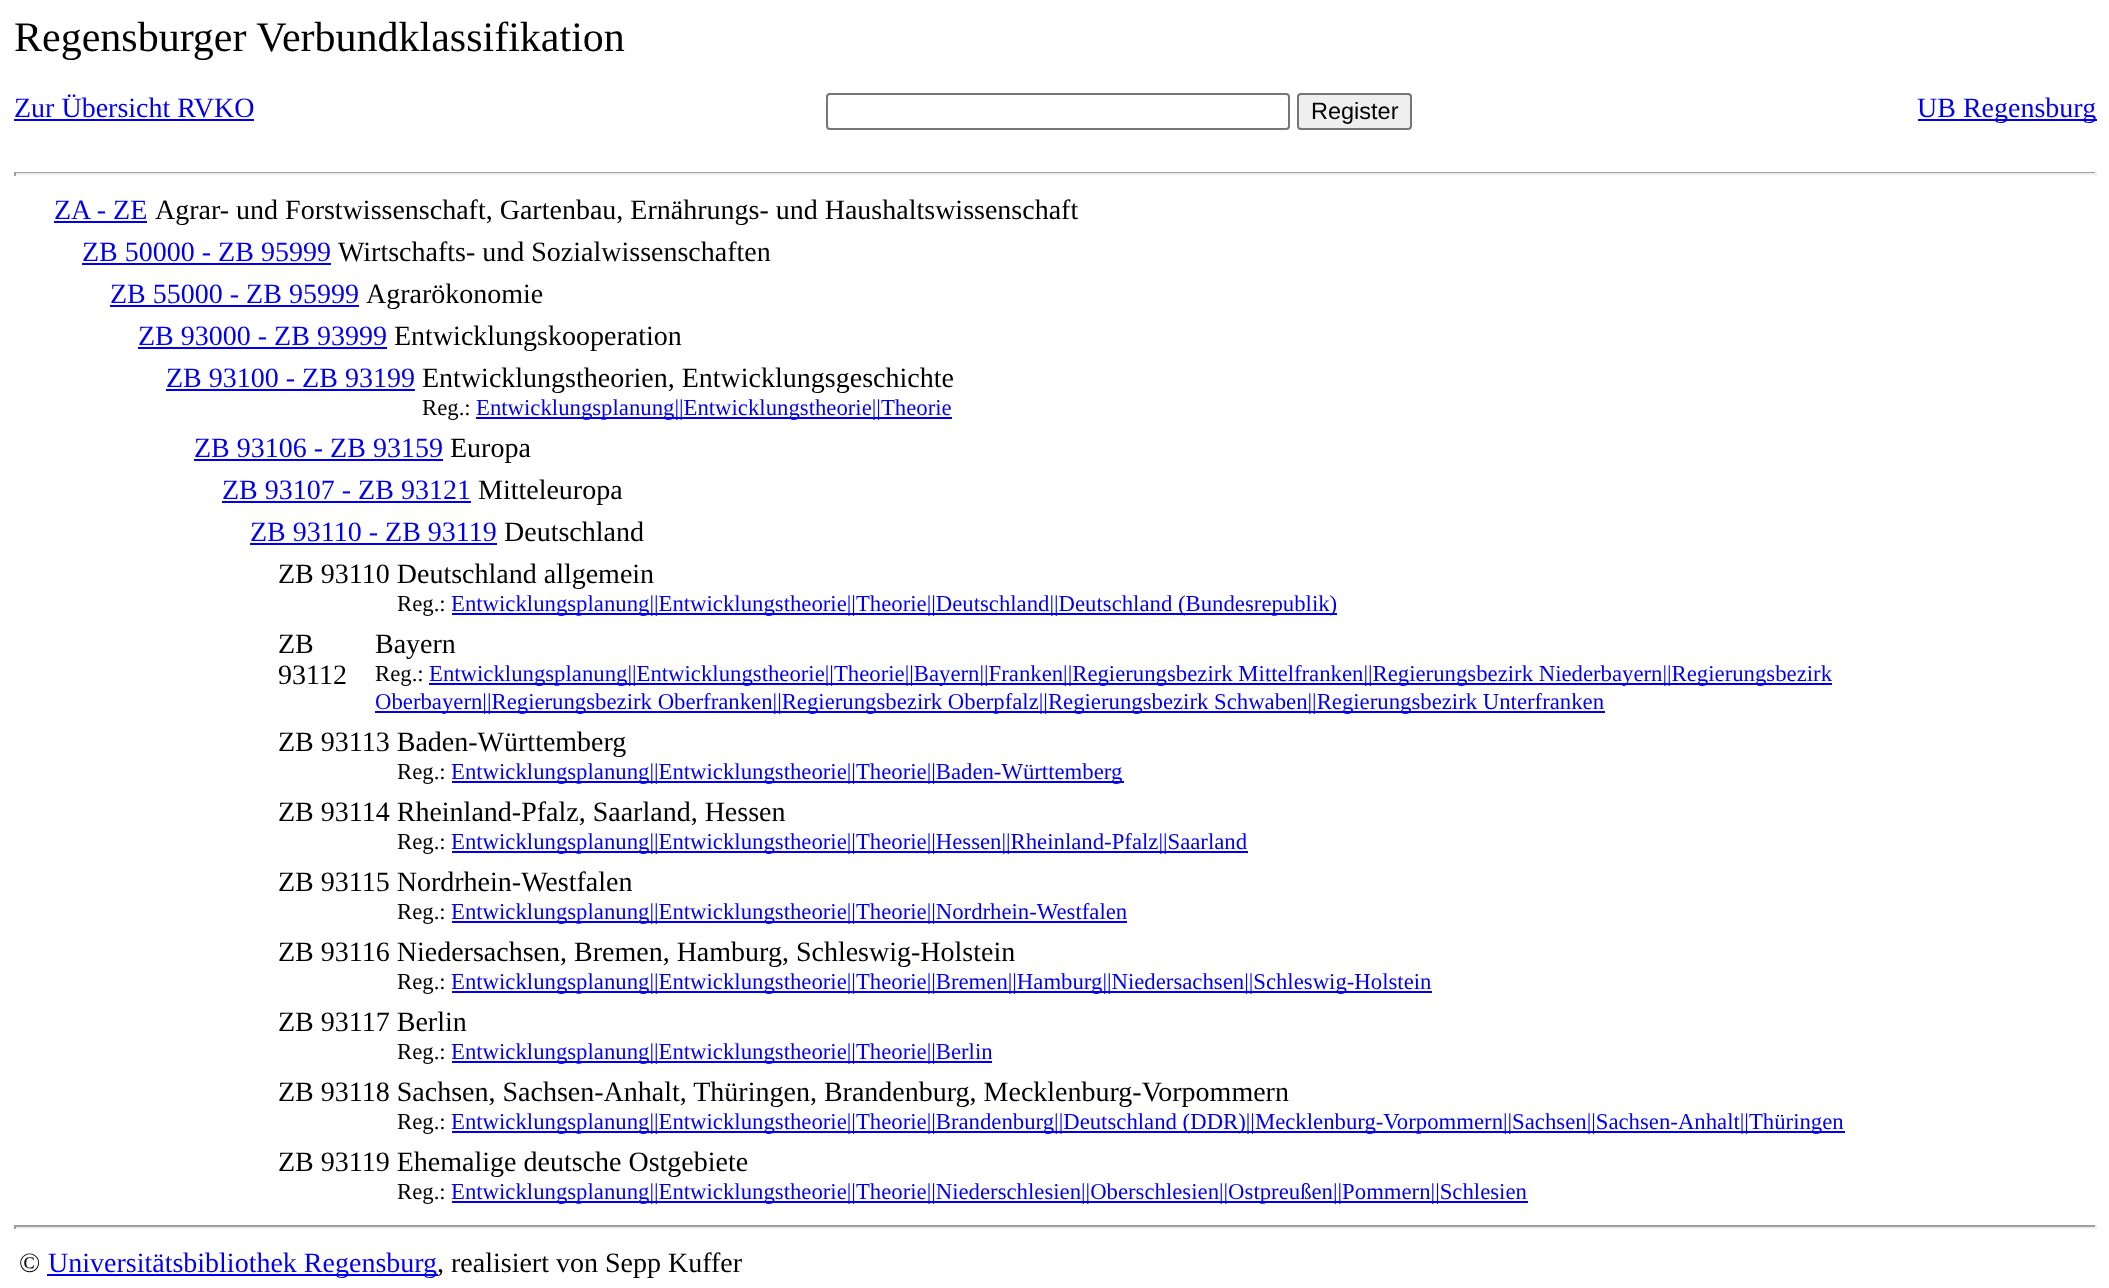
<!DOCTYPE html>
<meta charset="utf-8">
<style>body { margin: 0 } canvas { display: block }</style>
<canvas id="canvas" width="2109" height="1288"></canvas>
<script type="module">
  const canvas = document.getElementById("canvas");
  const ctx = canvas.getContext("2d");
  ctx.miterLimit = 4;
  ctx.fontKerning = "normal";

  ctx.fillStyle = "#ffffff";
  ctx.fillRect(0, 0, 2109, 1288);
  ctx.font = "42px Liberation Serif";
  ctx.fillStyle = "#000000";
  ctx.fillText("Regensburger Verbundklassifikation", 14, 51);
  ctx.font = "28px Liberation Serif";
  ctx.fillStyle = "#0000ee";
  ctx.fillText("Zur Übersicht RVKO", 14, 117);
  ctx.fillRect(14, 119, 240, 2);
  ctx.beginPath();
  ctx.roundRect(827, 94, 462, 35, 3);
  ctx.strokeStyle = "#767676";
  ctx.lineWidth = 2;
  ctx.stroke();
  ctx.fillStyle = "#efefef";
  ctx.beginPath();
  ctx.roundRect(1298, 94, 113, 35, 3);
  ctx.fill();
  ctx.stroke();
  ctx.font = "23.5px Liberation Sans";
  ctx.fillStyle = "#000000";
  ctx.fillText("Register", 1311, 119);
  ctx.fillStyle = "#0000ee";
  ctx.fillRect(1918, 119, 179, 2);
  ctx.font = "28px Liberation Serif";
  ctx.fillText("UB Regensburg", 1917, 117);
  ctx.fillStyle = "#9f9f9f";
  ctx.fillRect(14, 172, 2083, 1);
  ctx.fillStyle = "#eeeeee";
  ctx.fillRect(2095, 172, 2, 4);
  ctx.fillRect(14, 173, 2083, 2);
  ctx.fillStyle = "#9f9f9f";
  ctx.fillRect(14, 172, 2, 4);
  ctx.fillStyle = "#0000ee";
  ctx.fillText("ZA - ZE", 54, 219);
  ctx.fillRect(54, 221, 93, 2);
  ctx.fillStyle = "#000000";
  ctx.fillText("Agrar- und Forstwissenschaft, Gartenbau, Ernährungs- und Haushaltswissenschaft", 155, 219);
  ctx.fillStyle = "#0000ee";
  ctx.fillText("ZB 50000 - ZB 95999", 82, 261);
  ctx.fillRect(82, 263, 249, 2);
  ctx.fillStyle = "#000000";
  ctx.fillText("Wirtschafts- und Sozialwissenschaften", 338, 261);
  ctx.fillStyle = "#0000ee";
  ctx.fillText("ZB 55000 - ZB 95999", 110, 303);
  ctx.fillRect(110, 305, 249, 2);
  ctx.fillStyle = "#000000";
  ctx.fillText("Agrarökonomie", 366, 303);
  ctx.fillStyle = "#0000ee";
  ctx.fillText("ZB 93000 - ZB 93999", 138, 345);
  ctx.fillRect(138, 347, 249, 2);
  ctx.fillStyle = "#000000";
  ctx.fillText("Entwicklungskooperation", 394, 345);
  ctx.fillStyle = "#0000ee";
  ctx.fillText("ZB 93100 - ZB 93199", 166, 387);
  ctx.fillRect(166, 389, 249, 2);
  ctx.fillStyle = "#000000";
  ctx.fillText("Entwicklungstheorien, Entwicklungsgeschichte", 422, 387);
  ctx.font = "22.75px Liberation Serif";
  ctx.fillText("Reg.:", 422, 415);
  ctx.fillStyle = "#0000ee";
  ctx.fillRect(476, 417, 476, 2);
  ctx.fillText("Entwicklungsplanung||Entwicklungstheorie||Theorie", 476, 415);
  ctx.font = "28px Liberation Serif";
  ctx.fillText("ZB 93106 - ZB 93159", 194, 457);
  ctx.fillRect(194, 459, 249, 2);
  ctx.fillStyle = "#000000";
  ctx.fillText("Europa", 450, 457);
  ctx.fillStyle = "#0000ee";
  ctx.fillText("ZB 93107 - ZB 93121", 222, 499);
  ctx.fillRect(222, 501, 249, 2);
  ctx.fillStyle = "#000000";
  ctx.fillText("Mitteleuropa", 478, 499);
  ctx.fillStyle = "#0000ee";
  ctx.fillText("ZB 93110 - ZB 93119", 250, 541);
  ctx.fillRect(250, 543, 247, 2);
  ctx.fillStyle = "#000000";
  ctx.fillText("Deutschland", 504, 541);
  ctx.fillText("ZB 93110 Deutschland allgemein", 278, 583);
  ctx.font = "22.75px Liberation Serif";
  ctx.fillText("Reg.:", 397, 611);
  ctx.fillStyle = "#0000ee";
  ctx.fillRect(452, 613, 885, 2);
  ctx.fillText("Entwicklungsplanung||Entwicklungstheorie||Theorie||Deutschland||Deutschland (Bundesrepublik)", 451, 611);
  ctx.font = "28px Liberation Serif";
  ctx.fillStyle = "#000000";
  ctx.fillText("ZB", 278, 653);
  ctx.fillText("93112", 278, 684);
  ctx.fillText("Bayern", 375, 653);
  ctx.font = "22.75px Liberation Serif";
  ctx.fillText("Reg.:", 375, 681);
  ctx.fillStyle = "#0000ee";
  ctx.fillRect(429, 683, 1403, 2);
  ctx.fillText("Entwicklungsplanung||Entwicklungstheorie||Theorie||Bayern||Franken||Regierungsbezirk Mittelfranken||Regierungsbezirk Niederbayern||Regierungsbezirk", 429, 681);
  ctx.fillRect(375, 711, 1230, 2);
  ctx.fillText("Oberbayern||Regierungsbezirk Oberfranken||Regierungsbezirk Oberpfalz||Regierungsbezirk Schwaben||Regierungsbezirk Unterfranken", 375, 709);
  ctx.font = "28px Liberation Serif";
  ctx.fillStyle = "#000000";
  ctx.fillText("ZB 93113 Baden-Württemberg", 278, 751);
  ctx.font = "22.75px Liberation Serif";
  ctx.fillText("Reg.:", 397, 779);
  ctx.fillStyle = "#0000ee";
  ctx.fillRect(452, 781, 672, 2);
  ctx.fillText("Entwicklungsplanung||Entwicklungstheorie||Theorie||Baden-Württemberg", 451, 779);
  ctx.font = "28px Liberation Serif";
  ctx.fillStyle = "#000000";
  ctx.fillText("ZB 93114 Rheinland-Pfalz, Saarland, Hessen", 278, 821);
  ctx.font = "22.75px Liberation Serif";
  ctx.fillText("Reg.:", 397, 849);
  ctx.fillStyle = "#0000ee";
  ctx.fillRect(452, 851, 796, 2);
  ctx.fillText("Entwicklungsplanung||Entwicklungstheorie||Theorie||Hessen||Rheinland-Pfalz||Saarland", 451, 849);
  ctx.font = "28px Liberation Serif";
  ctx.fillStyle = "#000000";
  ctx.fillText("ZB 93115 Nordrhein-Westfalen", 278, 891);
  ctx.font = "22.75px Liberation Serif";
  ctx.fillText("Reg.:", 397, 919);
  ctx.fillStyle = "#0000ee";
  ctx.fillRect(452, 921, 675, 2);
  ctx.fillText("Entwicklungsplanung||Entwicklungstheorie||Theorie||Nordrhein-Westfalen", 451, 919);
  ctx.font = "28px Liberation Serif";
  ctx.fillStyle = "#000000";
  ctx.fillText("ZB 93116 Niedersachsen, Bremen, Hamburg, Schleswig-Holstein", 278, 961);
  ctx.font = "22.75px Liberation Serif";
  ctx.fillText("Reg.:", 397, 989);
  ctx.fillStyle = "#0000ee";
  ctx.fillRect(452, 991, 980, 2);
  ctx.fillText("Entwicklungsplanung||Entwicklungstheorie||Theorie||Bremen||Hamburg||Niedersachsen||Schleswig-Holstein", 451, 989);
  ctx.font = "28px Liberation Serif";
  ctx.fillStyle = "#000000";
  ctx.fillText("ZB 93117 Berlin", 278, 1031);
  ctx.font = "22.75px Liberation Serif";
  ctx.fillText("Reg.:", 397, 1059);
  ctx.fillStyle = "#0000ee";
  ctx.fillRect(452, 1061, 540, 2);
  ctx.fillText("Entwicklungsplanung||Entwicklungstheorie||Theorie||Berlin", 451, 1059);
  ctx.font = "28px Liberation Serif";
  ctx.fillStyle = "#000000";
  ctx.fillText("ZB 93118 Sachsen, Sachsen-Anhalt, Thüringen, Brandenburg, Mecklenburg-Vorpommern", 278, 1101);
  ctx.font = "22.75px Liberation Serif";
  ctx.fillText("Reg.:", 397, 1129);
  ctx.fillStyle = "#0000ee";
  ctx.fillRect(452, 1131, 1393, 2);
  ctx.fillText("Entwicklungsplanung||Entwicklungstheorie||Theorie||Brandenburg||Deutschland (DDR)||Mecklenburg-Vorpommern||Sachsen||Sachsen-Anhalt||Thüringen", 451, 1129);
  ctx.font = "28px Liberation Serif";
  ctx.fillStyle = "#000000";
  ctx.fillText("ZB 93119 Ehemalige deutsche Ostgebiete", 278, 1171);
  ctx.font = "22.75px Liberation Serif";
  ctx.fillText("Reg.:", 397, 1199);
  ctx.fillStyle = "#0000ee";
  ctx.fillRect(452, 1201, 1076, 2);
  ctx.fillText("Entwicklungsplanung||Entwicklungstheorie||Theorie||Niederschlesien||Oberschlesien||Ostpreußen||Pommern||Schlesien", 451, 1199);
  ctx.fillStyle = "#9f9f9f";
  ctx.fillRect(14, 1225, 2083, 2);
  ctx.fillStyle = "#eeeeee";
  ctx.fillRect(2095, 1225, 2, 4);
  ctx.fillRect(14, 1227, 2083, 2);
  ctx.fillStyle = "#9f9f9f";
  ctx.fillRect(14, 1225, 2, 4);
  ctx.font = "28px Liberation Serif";
  ctx.fillStyle = "#000000";
  ctx.fillText("©", 19, 1272);
  ctx.fillStyle = "#0000ee";
  ctx.fillRect(47, 1274, 391, 2);
  ctx.fillText("Universitätsbibliothek Regensburg", 48, 1272);
  ctx.fillStyle = "#000000";
  ctx.fillText(", realisiert von Sepp Kuffer", 437, 1272);
</script>
